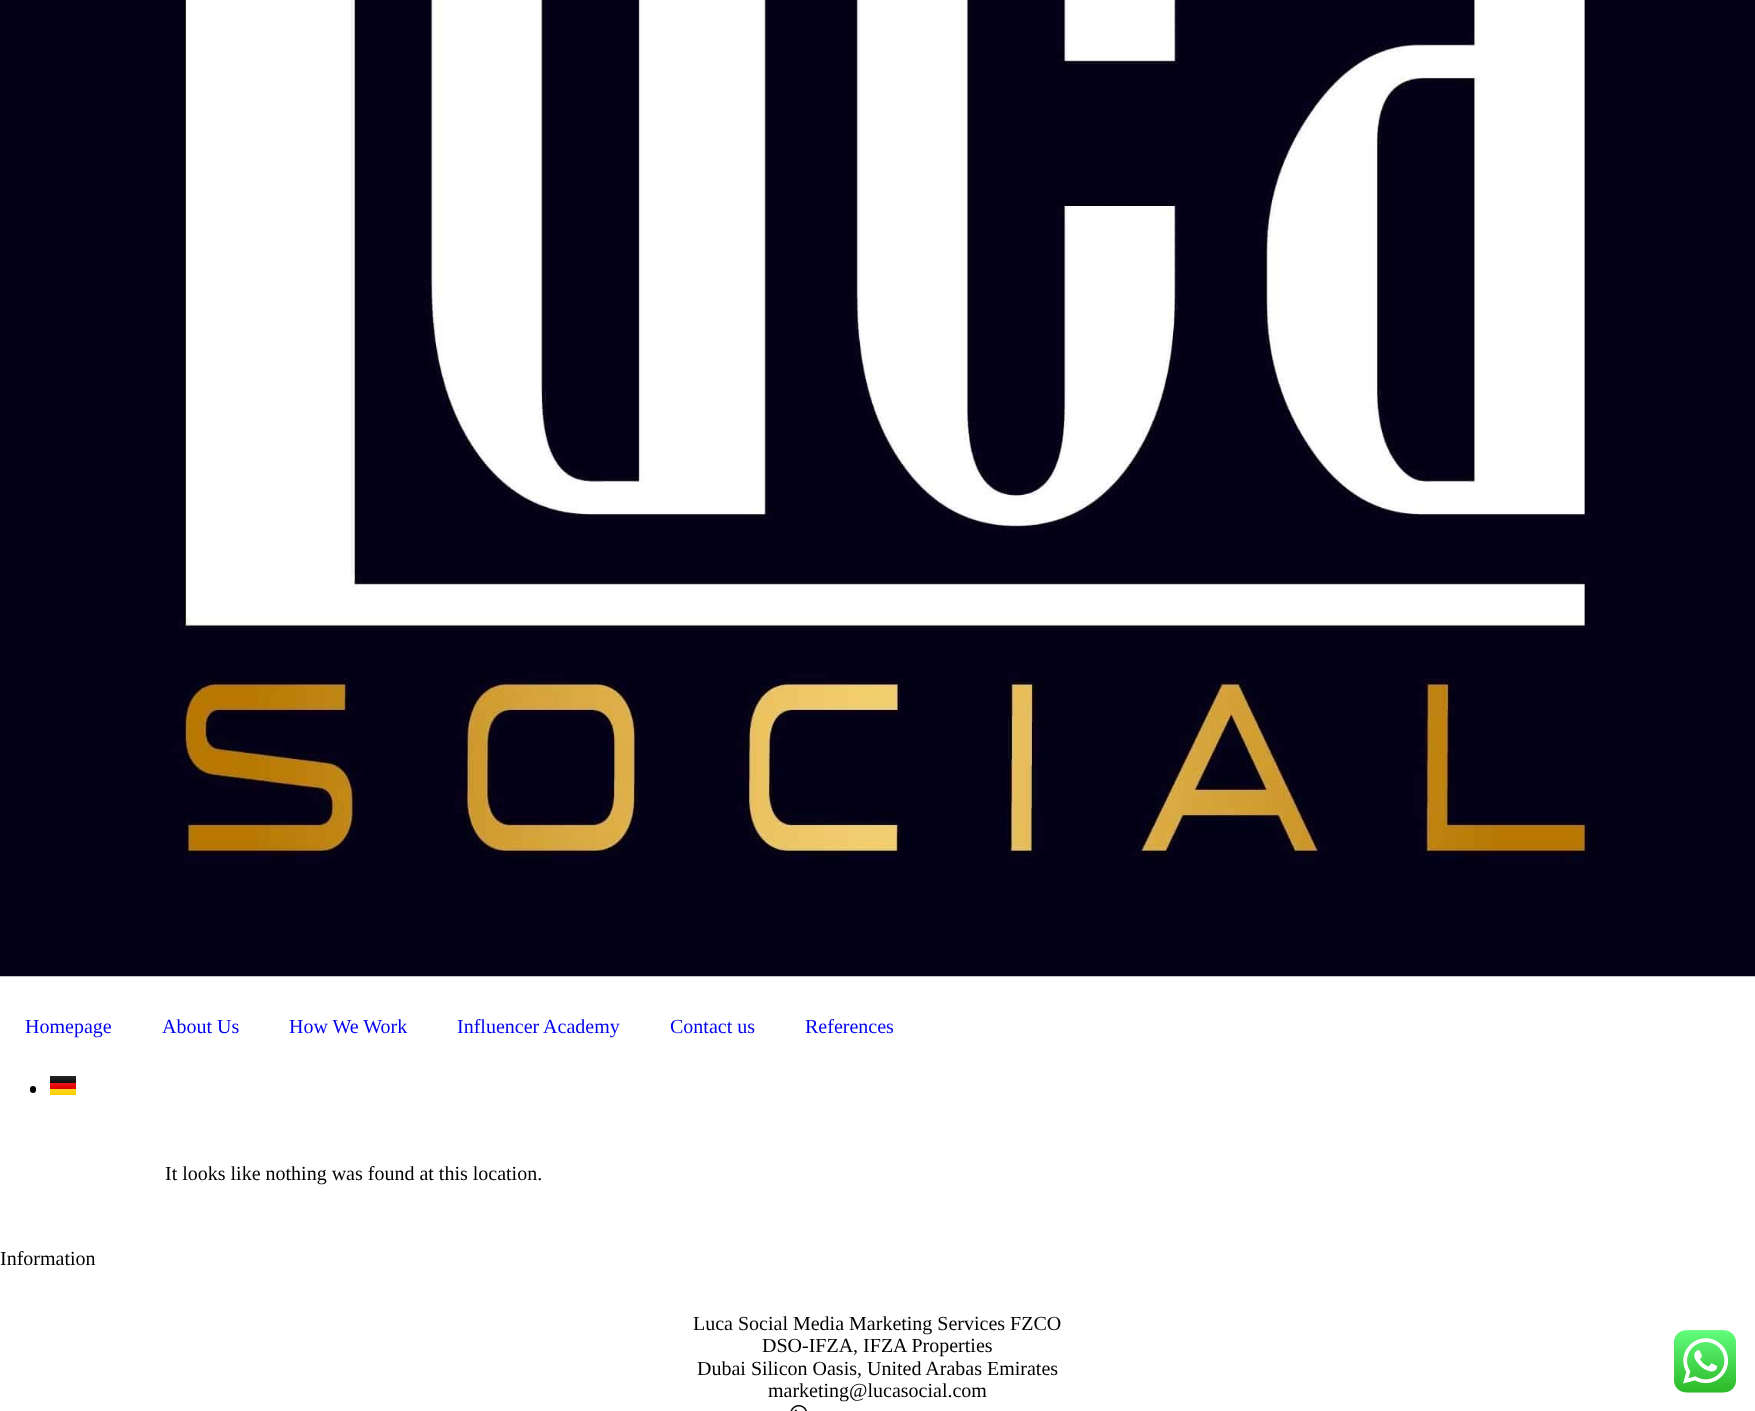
<!DOCTYPE html>
<meta charset="utf-8">
<style>body { margin: 0 } canvas { display: block }</style>
<canvas id="canvas" width="1755" height="1411"></canvas>
<script type="module">
  const canvas = document.getElementById("canvas");
  const ctx = canvas.getContext("2d");
  ctx.miterLimit = 4;
  ctx.fontKerning = "normal";
  async function loadImage(src) {
    const img = new Image();
    img.src = src;
    await img.decode();
    return img;
  }
  let gradient;

  ctx.fillStyle = "#ffffff";
  ctx.fillRect(0, 0, 1755, 1411);
  ctx.drawImage(await loadImage("img1.png"), 0, 0, 1755, 977);
  ctx.font = "20px Liberation Serif";
  ctx.fillStyle = "#0000ee";
  ctx.fillText("Homepage", 25, 1033);
  ctx.fillText("About Us", 162, 1033);
  ctx.fillText("How We Work", 289, 1033);
  ctx.fillText("Influencer Academy", 457, 1033);
  ctx.fillText("Contact us", 670, 1033);
  ctx.fillText("References", 805, 1033);
  gradient = ctx.createLinearGradient(63, 1076, 63, 1083);
  gradient.addColorStop(0, "#262626");
  gradient.addColorStop(1, "#0d0d0d");
  ctx.fillStyle = gradient;
  ctx.fillRect(50, 1076, 26, 7);
  ctx.fillStyle = "#000000";
  ctx.beginPath();
  ctx.roundRect(30, 1086, 6, 7, 3);
  ctx.fill();
  gradient = ctx.createLinearGradient(63, 1083, 63, 1089);
  gradient.addColorStop(0, "#f01515");
  gradient.addColorStop(1, "#de0000");
  ctx.fillStyle = gradient;
  ctx.fillRect(50, 1083, 26, 6);
  gradient = ctx.createLinearGradient(63, 1089, 63, 1095);
  gradient.addColorStop(0, "#ffd521");
  gradient.addColorStop(1, "#ffcf00");
  ctx.fillStyle = gradient;
  ctx.fillRect(50, 1089, 26, 6);
  ctx.fillStyle = "#000000";
  ctx.fillText("It looks like nothing was found at this location.", 165, 1180);
  ctx.fillText("Information", 0, 1265);
  ctx.fillText("Luca Social Media Marketing Services FZCO", 693, 1330);
  ctx.fillText("DSO-IFZA, IFZA Properties", 762, 1352);
  ctx.fillText("Dubai Silicon Oasis, United Arabas Emirates", 697, 1375);
  ctx.fillText("marketing@lucasocial.com", 768, 1397);
  ctx.drawImage(await loadImage("img2.png"), 790, 1405, 17, 6);
  ctx.drawImage(await loadImage("img3.png"), 1674, 1330, 62, 63);
</script>
